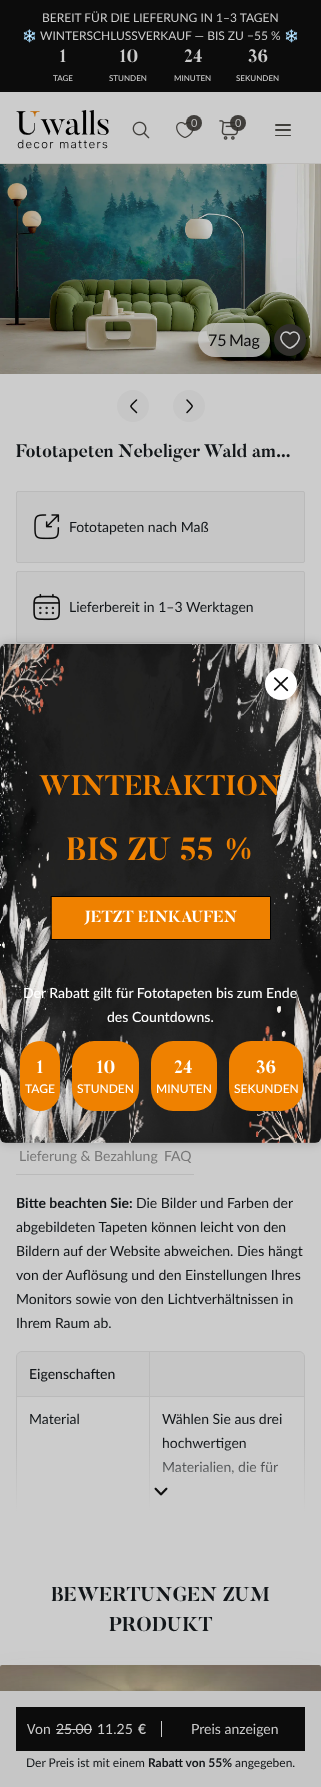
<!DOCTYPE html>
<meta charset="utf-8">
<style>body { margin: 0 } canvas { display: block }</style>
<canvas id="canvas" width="321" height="1787"></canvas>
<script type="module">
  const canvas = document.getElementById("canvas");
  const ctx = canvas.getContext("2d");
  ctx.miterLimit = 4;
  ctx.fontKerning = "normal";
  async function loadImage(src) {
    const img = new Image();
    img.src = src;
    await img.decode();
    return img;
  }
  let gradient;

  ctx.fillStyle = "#cccccc";
  ctx.fillRect(0, 0, 321, 1787);
  ctx.fillStyle = "#0c0c0c";
  ctx.fillRect(0, 0, 321, 92);
  ctx.font = "12px Lato";
  ctx.fillStyle = "#cccccc";
  ctx.fillText("BEREIT FÜR DIE LIEFERUNG IN 1–3 TAGEN", 42, 22);
  ctx.font = "12px Noto Color Emoji";
  ctx.fillText("❄️", 22, 40);
  ctx.font = "12px Lato";
  ctx.fillText("WINTERSCHLUSSVERKAUF — BIS ZU −55 %", 40, 40);
  ctx.font = "12px Noto Color Emoji";
  ctx.fillText("❄️", 284, 40);
  ctx.font = "bold 18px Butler";
  ctx.fillText("1", 59, 62);
  ctx.font = "500 8px Lato";
  ctx.fillText("TAGE", 53, 81);
  ctx.font = "bold 18px Butler";
  ctx.fillText("10", 119, 62);
  ctx.font = "500 8px Lato";
  ctx.fillText("STUNDEN", 109, 81);
  ctx.font = "bold 18px Butler";
  ctx.fillText("24", 184, 62);
  ctx.font = "500 8px Lato";
  ctx.fillText("MINUTEN", 174, 81);
  ctx.font = "bold 18px Butler";
  ctx.fillText("36", 248, 62);
  ctx.font = "500 8px Lato";
  ctx.fillText("SEKUNDEN", 236, 81);
  ctx.fillStyle = "#bebcba";
  ctx.fillRect(0, 163, 321, 1);
  ctx.drawImage(await loadImage("img1.png"), 16, 110, 93, 39);
  ctx.drawImage(await loadImage("img2.png"), 132, 121, 18, 18);
  ctx.drawImage(await loadImage("img3.png"), 176, 122, 18, 16);
  ctx.fillStyle = "rgba(49, 47, 43, 0.9)";
  ctx.beginPath();
  ctx.arc(194, 123, 8, 0, Math.PI * 2);
  ctx.fill();
  ctx.font = "11px Lato";
  ctx.fillStyle = "#bebebe";
  ctx.fillText("0", 191, 127);
  ctx.drawImage(await loadImage("img4.png"), 219, 120, 20, 20);
  ctx.fillStyle = "rgba(49, 47, 43, 0.9)";
  ctx.beginPath();
  ctx.arc(238, 123, 8, 0, Math.PI * 2);
  ctx.fill();
  ctx.fillStyle = "#bebebe";
  ctx.fillText("0", 235, 127);
  ctx.fillStyle = "#403f3b";
  ctx.beginPath();
  ctx.roundRect(275, 124, 16, 2, 1);
  ctx.fill();
  ctx.beginPath();
  ctx.roundRect(275, 129, 16, 2, 1);
  ctx.fill();
  ctx.beginPath();
  ctx.roundRect(275, 135, 16, 1, 0.5);
  ctx.fill();
  ctx.drawImage(await loadImage("img5.png"), 0, 164, 321, 210);
  ctx.fillStyle = "#c6c6c6";
  ctx.beginPath();
  ctx.arc(133, 406, 16, 0, Math.PI * 2);
  ctx.fill();
  ctx.beginPath();
  ctx.arc(189, 406, 16, 0, Math.PI * 2);
  ctx.fill();
  ctx.beginPath();
  ctx.moveTo(136.5, 412.5);
  ctx.bezierCurveTo(129, 405, 129, 407.5, 136.5, 400);
  ctx.moveTo(187, 412.5);
  ctx.bezierCurveTo(194, 405, 194, 407.5, 187, 400);
  ctx.strokeStyle = "#0c0c0c";
  ctx.lineWidth = 1.5;
  ctx.lineCap = "round";
  ctx.lineJoin = "round";
  ctx.stroke();
  ctx.fillStyle = "rgba(204, 204, 204, 0.79)";
  ctx.beginPath();
  ctx.roundRect(198, 323, 72, 34, 17);
  ctx.fill();
  ctx.font = "16px Lato";
  ctx.fillStyle = "#0c0c0c";
  ctx.fillText("75", 208, 346);
  ctx.fillText("Mag", 229, 346);
  ctx.fillStyle = "#312f2b";
  ctx.beginPath();
  ctx.arc(290, 340, 16, 0, Math.PI * 2);
  ctx.fill();
  ctx.beginPath();
  ctx.moveTo(290.5, 348);
  ctx.bezierCurveTo(289, 348.5, 287, 346.5, 285.5, 345.5);
  ctx.bezierCurveTo(275, 337.5, 285, 327.5, 290, 334);
  ctx.bezierCurveTo(294, 328.5, 303, 334.5, 297, 343);
  ctx.bezierCurveTo(295.5, 345, 293, 347, 290.5, 348);
  ctx.closePath();
  ctx.strokeStyle = "#cccccc";
  ctx.stroke();
  ctx.font = "bold 18px Butler";
  ctx.fillStyle = "#121619";
  ctx.fillText("Fototapeten Nebeliger Wald am…", 16, 457);
  ctx.fillStyle = "#c6c6c6";
  ctx.beginPath();
  ctx.roundRect(16.5, 491.5, 288, 71, 1.5);
  ctx.fill();
  ctx.strokeStyle = "#bababa";
  ctx.lineWidth = 1;
  ctx.lineJoin = "miter";
  ctx.stroke();
  ctx.drawImage(await loadImage("img6.png"), 34, 514, 26, 26);
  ctx.font = "14px Lato";
  ctx.fillStyle = "#121619";
  ctx.fillText("Fototapeten nach Maß", 69, 532);
  ctx.fillStyle = "#c6c6c6";
  ctx.beginPath();
  ctx.roundRect(16.5, 571.5, 288, 71, 1.5);
  ctx.fill();
  ctx.stroke();
  ctx.drawImage(await loadImage("img7.png"), 33, 593, 27, 28);
  ctx.fillStyle = "#121619";
  ctx.fillText("Lieferbereit in 1–3 Werktagen", 69, 612);
  ctx.save();
  ctx.beginPath();
  ctx.rect(16, 1191, 289, 350);
  ctx.clip();
  ctx.beginPath();
  ctx.roundRect(16.5, 1351.5, 288, 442, 5.5);
  ctx.stroke();
  ctx.restore();
  ctx.drawImage(await loadImage("img9.png"), 0, 1665, 321, 26);
  ctx.fillStyle = "rgba(75, 75, 75, 0.2)";
  ctx.filter = "blur(20px)";
  ctx.beginPath();
  ctx.rect(0, 1693, 321, 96);
  ctx.fill();
  ctx.filter = "none";
  ctx.fillStyle = "#c6c6c6";
  ctx.fillRect(0, 1691, 321, 96);
  ctx.fillStyle = "#0c0c0c";
  ctx.fillRect(16, 1707, 289, 44);
  ctx.font = "14px Noto Sans";
  ctx.fillStyle = "#cccccc";
  ctx.fillText("V", 27, 1734);
  ctx.font = "14px Lato";
  ctx.fillText("on", 35, 1734);
  ctx.fillText("25.00", 56, 1734);
  ctx.fillRect(56, 1729, 36, 1);
  ctx.fillText("11.25", 97, 1734);
  ctx.font = "600 14px Lato";
  ctx.fillText("€", 138, 1734);
  ctx.fillRect(161, 1721, 1, 16);
  ctx.font = "14px Lato";
  ctx.fillText("Preis anzeigen", 191, 1734);
  ctx.font = "12px Lato";
  ctx.fillStyle = "#121619";
  ctx.fillText("Der Preis ist mit einem", 26, 1767);
  ctx.font = "bold 12px Lato";
  ctx.fillText("Rabatt von 55%", 148, 1767);
  ctx.font = "12px Lato";
  ctx.fillText("angegeben.", 235, 1767);
  ctx.fillStyle = "#bababa";
  ctx.fillRect(16, 1174, 178, 1);
  ctx.font = "14px Lato";
  ctx.fillStyle = "#777777";
  ctx.fillText("Lieferung & Bezahlung", 19, 1161);
  ctx.fillText("FAQ", 164, 1161);
  ctx.font = "bold 14px Lato";
  ctx.fillStyle = "#121619";
  ctx.fillText("Bitte beachten Sie:", 16, 1208);
  ctx.font = "14px Lato";
  ctx.fillText("Die Bilder und Farben der", 136, 1208);
  ctx.fillText("abgebildeten Tapeten können leicht von den", 16, 1232);
  ctx.fillText("Bildern auf der Website abweichen. Dies hängt", 16, 1256);
  ctx.fillText("von der Auflösung und den Einstellungen Ihres", 16, 1280);
  ctx.fillText("Monitors sowie von den Lichtverhältnissen in", 16, 1304);
  ctx.fillText("Ihrem Raum ab.", 16, 1328);
  ctx.fillStyle = "rgba(186, 186, 186, 0.3)";
  ctx.beginPath();
  ctx.roundRect(17, 1352, 287, 45, [5, 5, 0, 0]);
  ctx.fill();
  ctx.fillStyle = "#bababa";
  ctx.fillRect(17, 1396, 287, 1);
  ctx.fillRect(149, 1352, 1, 44);
  ctx.font = "500 14px Lato";
  ctx.fillStyle = "#121619";
  ctx.fillText("Eigenschaften", 29, 1379);
  ctx.fillStyle = "#bababa";
  ctx.fillRect(149, 1397, 1, 114);
  ctx.font = "14px Lato";
  ctx.fillStyle = "#121619";
  ctx.fillText("Material", 29, 1424);
  ctx.fillText("Wählen Sie aus drei", 162, 1424);
  ctx.fillText("hochwertigen", 162, 1448);
  ctx.fillText("Materialien, die für", 162, 1472);
  gradient = ctx.createLinearGradient(161, 1541, 161, 1442);
  gradient.addColorStop(0.3, "#cccccc");
  gradient.addColorStop(1, "rgba(204, 204, 204, 0)");
  ctx.fillStyle = gradient;
  ctx.fillRect(16, 1443, 289, 98);
  ctx.drawImage(await loadImage("img8.png"), 154, 1487, 14, 9);
  ctx.font = "bold 20px Butler";
  ctx.fillStyle = "#121619";
  ctx.fillText("BEWERTUNGEN ZUM", 51, 1601);
  ctx.fillText("PRODUKT", 109, 1631);
  ctx.fillStyle = "rgba(0, 0, 0, 0.16)";
  ctx.filter = "blur(5px)";
  ctx.beginPath();
  ctx.roundRect(-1, 643, 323, 501, 7);
  ctx.fill();
  ctx.filter = "none";
  ctx.drawImage(await loadImage("img10.png"), 0, 644, 321, 499);
  ctx.fillStyle = "#ffffff";
  ctx.beginPath();
  ctx.arc(281, 684, 16, 0, Math.PI * 2);
  ctx.fill();
  ctx.drawImage(await loadImage("img11.png"), 273, 676, 16, 16);
  ctx.font = "bold 28px Butler";
  ctx.fillStyle = "#ef8100";
  ctx.fillText("WINTERAKTION", 39, 795);
  ctx.font = "bold 32px Butler";
  ctx.fillText("BIS ZU 55 %", 66, 860);
  ctx.beginPath();
  ctx.rect(51.5, 896.5, 219, 43);
  ctx.fill();
  ctx.strokeStyle = "#000000";
  ctx.stroke();
  ctx.font = "bold 16px Butler";
  ctx.fillStyle = "#ffffff";
  ctx.fillText("JETZT EINKAUFEN", 84, 922);
  ctx.font = "500 14px Lato";
  ctx.fillText("Der Rabatt gilt für Fototapeten bis zum Ende", 23, 998);
  ctx.fillText("des Countdowns.", 107, 1022);
  ctx.fillStyle = "#ef8100";
  ctx.beginPath();
  ctx.roundRect(20, 1041, 40, 70, 20);
  ctx.fill();
  ctx.font = "bold 18px Butler";
  ctx.fillStyle = "#ffffff";
  ctx.fillText("1", 36, 1073);
  ctx.font = "500 12px Lato";
  ctx.fillText("TAGE", 25, 1093);
  ctx.fillStyle = "#ef8100";
  ctx.beginPath();
  ctx.roundRect(72, 1041, 67, 70, 22);
  ctx.fill();
  ctx.font = "bold 18px Butler";
  ctx.fillStyle = "#ffffff";
  ctx.fillText("10", 96, 1073);
  ctx.font = "500 12px Lato";
  ctx.fillText("STUNDEN", 77, 1093);
  ctx.fillStyle = "#ef8100";
  ctx.beginPath();
  ctx.roundRect(151, 1041, 66, 70, 22);
  ctx.fill();
  ctx.font = "bold 18px Butler";
  ctx.fillStyle = "#ffffff";
  ctx.fillText("24", 174, 1073);
  ctx.font = "500 12px Lato";
  ctx.fillText("MINUTEN", 156, 1093);
  ctx.fillStyle = "#ef8100";
  ctx.beginPath();
  ctx.roundRect(229, 1041, 74, 70, 22);
  ctx.fill();
  ctx.font = "bold 18px Butler";
  ctx.fillStyle = "#ffffff";
  ctx.fillText("36", 256, 1073);
  ctx.font = "500 12px Lato";
  ctx.fillText("SEKUNDEN", 234, 1093);
</script>
